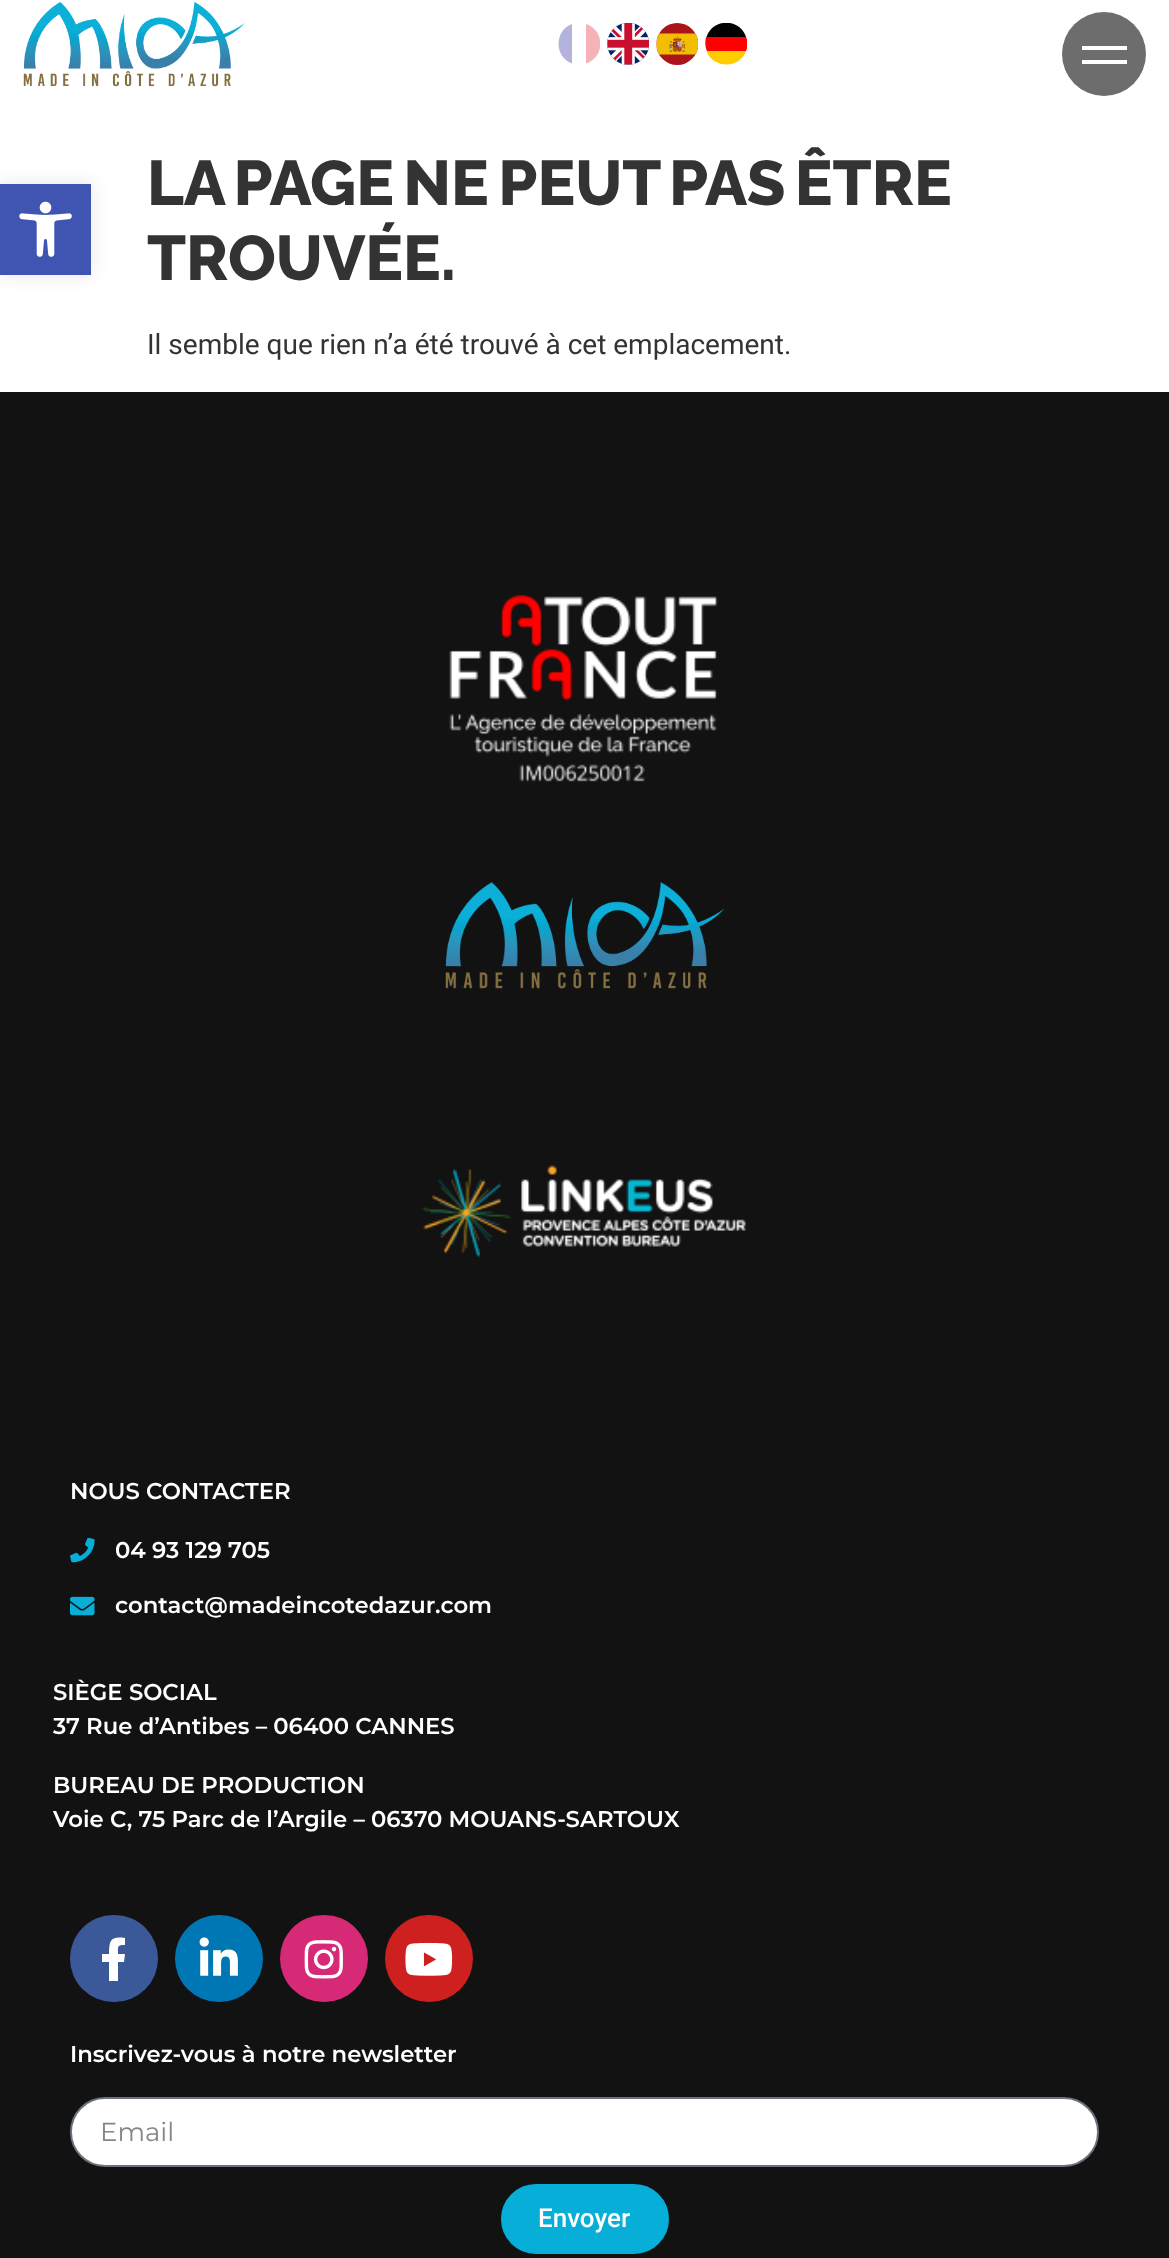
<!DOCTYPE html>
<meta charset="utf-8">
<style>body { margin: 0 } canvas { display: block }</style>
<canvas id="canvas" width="1169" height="2258"></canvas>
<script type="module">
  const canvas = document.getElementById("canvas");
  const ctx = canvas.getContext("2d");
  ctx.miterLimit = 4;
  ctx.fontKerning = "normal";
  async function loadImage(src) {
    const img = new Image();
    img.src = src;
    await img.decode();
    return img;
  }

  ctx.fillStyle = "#ffffff";
  ctx.fillRect(0, 0, 1169, 2258);
  ctx.drawImage(await loadImage("img1.png"), 23, 2, 222, 85);
  ctx.fillStyle = "#b3b3de";
  ctx.beginPath();
  ctx.moveTo(572, 63.5);
  ctx.bezierCurveTo(554, 57, 554, 30.5, 572, 24);
  ctx.closePath();
  ctx.fill();
  ctx.fillStyle = "#f6b3b7";
  ctx.beginPath();
  ctx.moveTo(600, 47);
  ctx.bezierCurveTo(599, 55, 593.5, 61, 586, 63.5);
  ctx.lineTo(586, 24);
  ctx.bezierCurveTo(593.5, 26.5, 599, 32.5, 600, 40.5);
  ctx.closePath();
  ctx.fill();
  ctx.drawImage(await loadImage("img2.png"), 607, 23, 42, 42);
  ctx.drawImage(await loadImage("img3.png"), 656, 23, 42, 42);
  ctx.fillStyle = "#ffcc00";
  ctx.beginPath();
  ctx.moveTo(746, 51);
  ctx.bezierCurveTo(739.5, 69, 713, 69, 706.5, 51);
  ctx.closePath();
  ctx.fill();
  ctx.save();
  ctx.beginPath();
  ctx.rect(705, 23, 42, 42);
  ctx.clip();
  ctx.fillStyle = "#000001";
  ctx.beginPath();
  ctx.moveTo(706.5, 37);
  ctx.bezierCurveTo(712.5, 18, 740, 18, 746, 37);
  ctx.closePath();
  ctx.fill();
  ctx.fillStyle = "#ff0000";
  ctx.beginPath();
  ctx.moveTo(707, 51);
  ctx.bezierCurveTo(705, 47, 705, 42, 706, 37);
  ctx.lineTo(746, 37);
  ctx.bezierCurveTo(748, 41, 748, 47, 746, 51);
  ctx.closePath();
  ctx.fill();
  ctx.restore();
  ctx.fillStyle = "#6d6d6d";
  ctx.beginPath();
  ctx.arc(1104, 54, 42, 0, Math.PI * 2);
  ctx.fill();
  ctx.fillStyle = "#ffffff";
  ctx.fillRect(1082, 46, 45, 4);
  ctx.fillRect(1082, 60, 45, 4);
  ctx.fillStyle = "rgba(0, 0, 0, 0.1)";
  ctx.filter = "blur(9px)";
  ctx.beginPath();
  ctx.rect(0, 184, 91, 91);
  ctx.fill();
  ctx.filter = "none";
  ctx.fillStyle = "#4054b2";
  ctx.fillRect(0, 184, 91, 91);
  ctx.drawImage(await loadImage("img4.png"), 19, 201, 53, 56);
  ctx.wordSpacing = "-5.25px";
  ctx.font = "800 63px Raleway";
  ctx.fillStyle = "#333333";
  ctx.fillText("LA PAGE NE PEUT PAS ÊTRE", 147, 205);
  ctx.wordSpacing = "0px";
  ctx.fillText("TROUVÉE.", 147, 280);
  ctx.font = "28px Roboto";
  ctx.fillText("Il semble que rien n’a été trouvé à cet emplacement.", 147, 354);
  ctx.fillStyle = "#121212";
  ctx.fillRect(0, 392, 1169, 1866);
  ctx.drawImage(await loadImage("img5.png"), 449, 594, 269, 188);
  ctx.drawImage(await loadImage("img6.png"), 445, 882, 280, 107);
  ctx.drawImage(await loadImage("img7.png"), 422, 1165, 324, 93);
  ctx.font = "600 22.75px Montserrat";
  ctx.fillStyle = "#ffffff";
  ctx.fillText("NOUS CONTACTER", 70, 1499);
  ctx.drawImage(await loadImage("img8.png"), 70, 1537, 25, 26);
  ctx.fillText("04 93 129 705", 115, 1558);
  ctx.drawImage(await loadImage("img9.png"), 70, 1596, 25, 20);
  ctx.fillText("contact@madeincotedazur.com", 115, 1613);
  ctx.fillText("SIÈGE SOCIAL", 53, 1700);
  ctx.fillText("37 Rue d’Antibes – 06400 CANNES", 53, 1734);
  ctx.fillText("BUREAU DE PRODUCTION", 53, 1793);
  ctx.fillText("Voie C, 75 Parc de l’Argile – 06370 MOUANS-SARTOUX", 53, 1827);
  ctx.fillStyle = "#3b5998";
  ctx.beginPath();
  ctx.roundRect(70, 1915, 88, 87, 43.5);
  ctx.fill();
  ctx.fillStyle = "#ffffff";
  ctx.beginPath();
  ctx.moveTo(124, 1962);
  ctx.lineTo(118, 1962);
  ctx.lineTo(118, 1981);
  ctx.lineTo(109, 1981);
  ctx.lineTo(109, 1962);
  ctx.lineTo(102, 1962);
  ctx.lineTo(102, 1954);
  ctx.lineTo(109, 1954);
  ctx.bezierCurveTo(109, 1940, 111, 1936, 125, 1938);
  ctx.lineTo(125, 1945);
  ctx.bezierCurveTo(117, 1945, 118, 1946, 118, 1954);
  ctx.lineTo(125, 1954);
  ctx.closePath();
  ctx.fill();
  ctx.fillStyle = "#0077b5";
  ctx.beginPath();
  ctx.roundRect(175, 1915, 88, 87, 43.5);
  ctx.fill();
  ctx.drawImage(await loadImage("img10.png"), 199, 1937, 39, 39);
  ctx.fillStyle = "#d62976";
  ctx.beginPath();
  ctx.roundRect(280, 1915, 88, 87, 43.5);
  ctx.fill();
  ctx.drawImage(await loadImage("img11.png"), 304, 1940, 39, 39);
  ctx.fillStyle = "#cd201f";
  ctx.beginPath();
  ctx.roundRect(385, 1915, 88, 87, 43.5);
  ctx.fill();
  ctx.drawImage(await loadImage("img12.png"), 405, 1942, 48, 34);
  ctx.fillStyle = "#ffffff";
  ctx.fillText("Inscrivez-vous à notre newsletter", 70, 2062);
  ctx.beginPath();
  ctx.roundRect(71, 2098, 1027, 68, 34);
  ctx.fill();
  ctx.strokeStyle = "#69727d";
  ctx.lineWidth = 2;
  ctx.stroke();
  ctx.font = "26px Montserrat";
  ctx.fillStyle = "#868686";
  ctx.fillText("Email", 100, 2141);
  ctx.fillStyle = "#07aed8";
  ctx.beginPath();
  ctx.roundRect(502, 2185, 166, 68, 34);
  ctx.fill();
  ctx.strokeStyle = "#07aed8";
  ctx.stroke();
  ctx.font = "500 26px Roboto";
  ctx.fillStyle = "#ffffff";
  ctx.fillText("Envoyer", 538, 2227);
</script>
